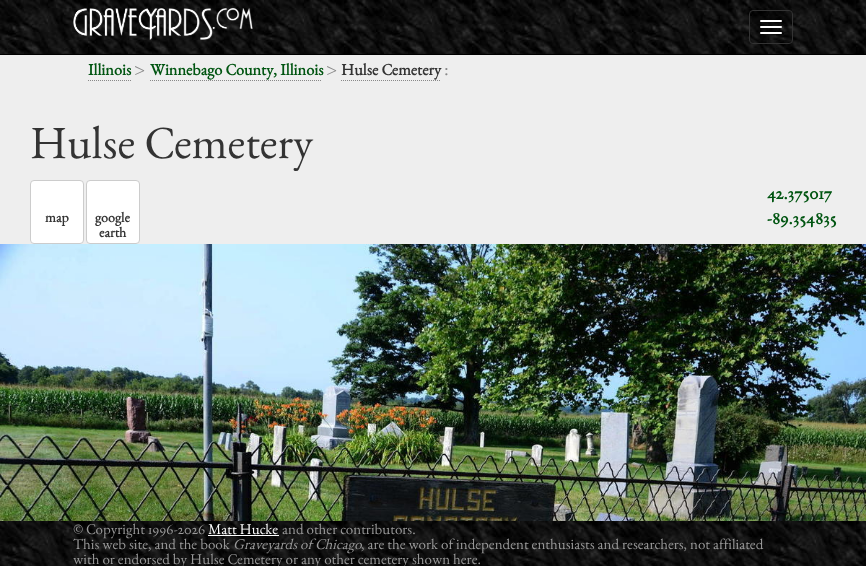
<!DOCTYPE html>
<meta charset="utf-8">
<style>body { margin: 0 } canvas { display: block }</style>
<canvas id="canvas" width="866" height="566"></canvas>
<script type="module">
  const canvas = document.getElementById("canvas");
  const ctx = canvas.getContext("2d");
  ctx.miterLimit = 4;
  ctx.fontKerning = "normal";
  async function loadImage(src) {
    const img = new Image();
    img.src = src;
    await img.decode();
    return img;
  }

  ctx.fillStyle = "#eeeeee";
  ctx.fillRect(0, 0, 866, 566);
  ctx.drawImage(await loadImage("img1.png"), 0, 0, 866, 54);
  ctx.fillStyle = "#000000";
  ctx.fillRect(0, 54, 866, 1);
  ctx.drawImage(await loadImage("img2.png"), 73, 8, 180, 32);
  ctx.beginPath();
  ctx.roundRect(749.5, 10.5, 43, 33, 3.5);
  ctx.strokeStyle = "#333333";
  ctx.stroke();
  ctx.fillStyle = "#ffffff";
  ctx.beginPath();
  ctx.roundRect(760, 20, 22, 2, 1);
  ctx.fill();
  ctx.beginPath();
  ctx.roundRect(760, 26, 22, 2, 1);
  ctx.fill();
  ctx.beginPath();
  ctx.roundRect(760, 32, 22, 2, 1);
  ctx.fill();
  ctx.font = "bold 16.25px EB Garamond";
  ctx.fillStyle = "#005511";
  ctx.fillText("Illinois", 88, 75);
  ctx.beginPath();
  ctx.moveTo(88, 80.5);
  ctx.lineTo(131, 80.5);
  ctx.strokeStyle = "#888888";
  ctx.setLineDash([1, 1]);
  ctx.stroke();
  ctx.font = "19px EB Garamond";
  ctx.fillStyle = "#888888";
  ctx.fillText(">", 134, 75);
  ctx.font = "bold 16.25px EB Garamond";
  ctx.fillStyle = "#005511";
  ctx.fillText("Winnebago County, Illinois", 150, 75);
  ctx.beginPath();
  ctx.moveTo(150, 80.5);
  ctx.lineTo(322, 80.5);
  ctx.stroke();
  ctx.font = "19px EB Garamond";
  ctx.fillStyle = "#888888";
  ctx.fillText(">", 326, 75);
  ctx.font = "bold 16.25px EB Garamond";
  ctx.fillStyle = "#333333";
  ctx.fillText("Hulse Cemetery", 341, 75);
  ctx.beginPath();
  ctx.moveTo(341, 80.5);
  ctx.lineTo(441, 80.5);
  ctx.stroke();
  ctx.font = "19px EB Garamond";
  ctx.fillStyle = "#888888";
  ctx.fillText(":", 444, 75);
  ctx.font = "46px EB Garamond";
  ctx.fillStyle = "#333333";
  ctx.fillText("Hulse Cemetery", 30, 158);
  ctx.fillStyle = "#ffffff";
  ctx.beginPath();
  ctx.roundRect(30.5, 180.5, 53, 63, 3.5);
  ctx.fill();
  ctx.strokeStyle = "#cccccc";
  ctx.setLineDash([]);
  ctx.stroke();
  ctx.font = "bold 14px EB Garamond";
  ctx.fillStyle = "#333333";
  ctx.fillText("map", 45, 222);
  ctx.fillStyle = "#ffffff";
  ctx.beginPath();
  ctx.roundRect(86.5, 180.5, 53, 63, 3.5);
  ctx.fill();
  ctx.stroke();
  ctx.fillStyle = "#333333";
  ctx.fillText("google", 95, 222);
  ctx.fillText("earth", 99, 237);
  ctx.font = "bold 18px EB Garamond";
  ctx.fillStyle = "#005511";
  ctx.fillText("42.375017", 767, 199);
  ctx.fillText("-89.354835", 767, 224);
  ctx.drawImage(await loadImage("img3.png"), 0, 244, 866, 277);
  ctx.drawImage(await loadImage("img4.png"), 0, 521, 866, 45);
  ctx.font = "15px EB Garamond";
  ctx.fillStyle = "#999999";
  ctx.fillText("© Copyright 1996-2026", 73, 534);
  ctx.fillStyle = "#ffffff";
  ctx.fillText("Matt Hucke", 208, 534);
  ctx.fillRect(208, 535, 71, 1);
  ctx.fillStyle = "#999999";
  ctx.fillText("and other contributors.", 282, 534);
  ctx.fillText("This web site, and the book", 73, 549);
  ctx.font = "italic 15px EB Garamond";
  ctx.fillText("Graveyards of Chicago", 233, 549);
  ctx.font = "15px EB Garamond";
  ctx.fillText(", are the work of independent enthusiasts and researchers, not affiliated", 361, 549);
  ctx.fillText("with or endorsed by Hulse Cemetery or any other cemetery shown here.", 73, 564);
</script>
